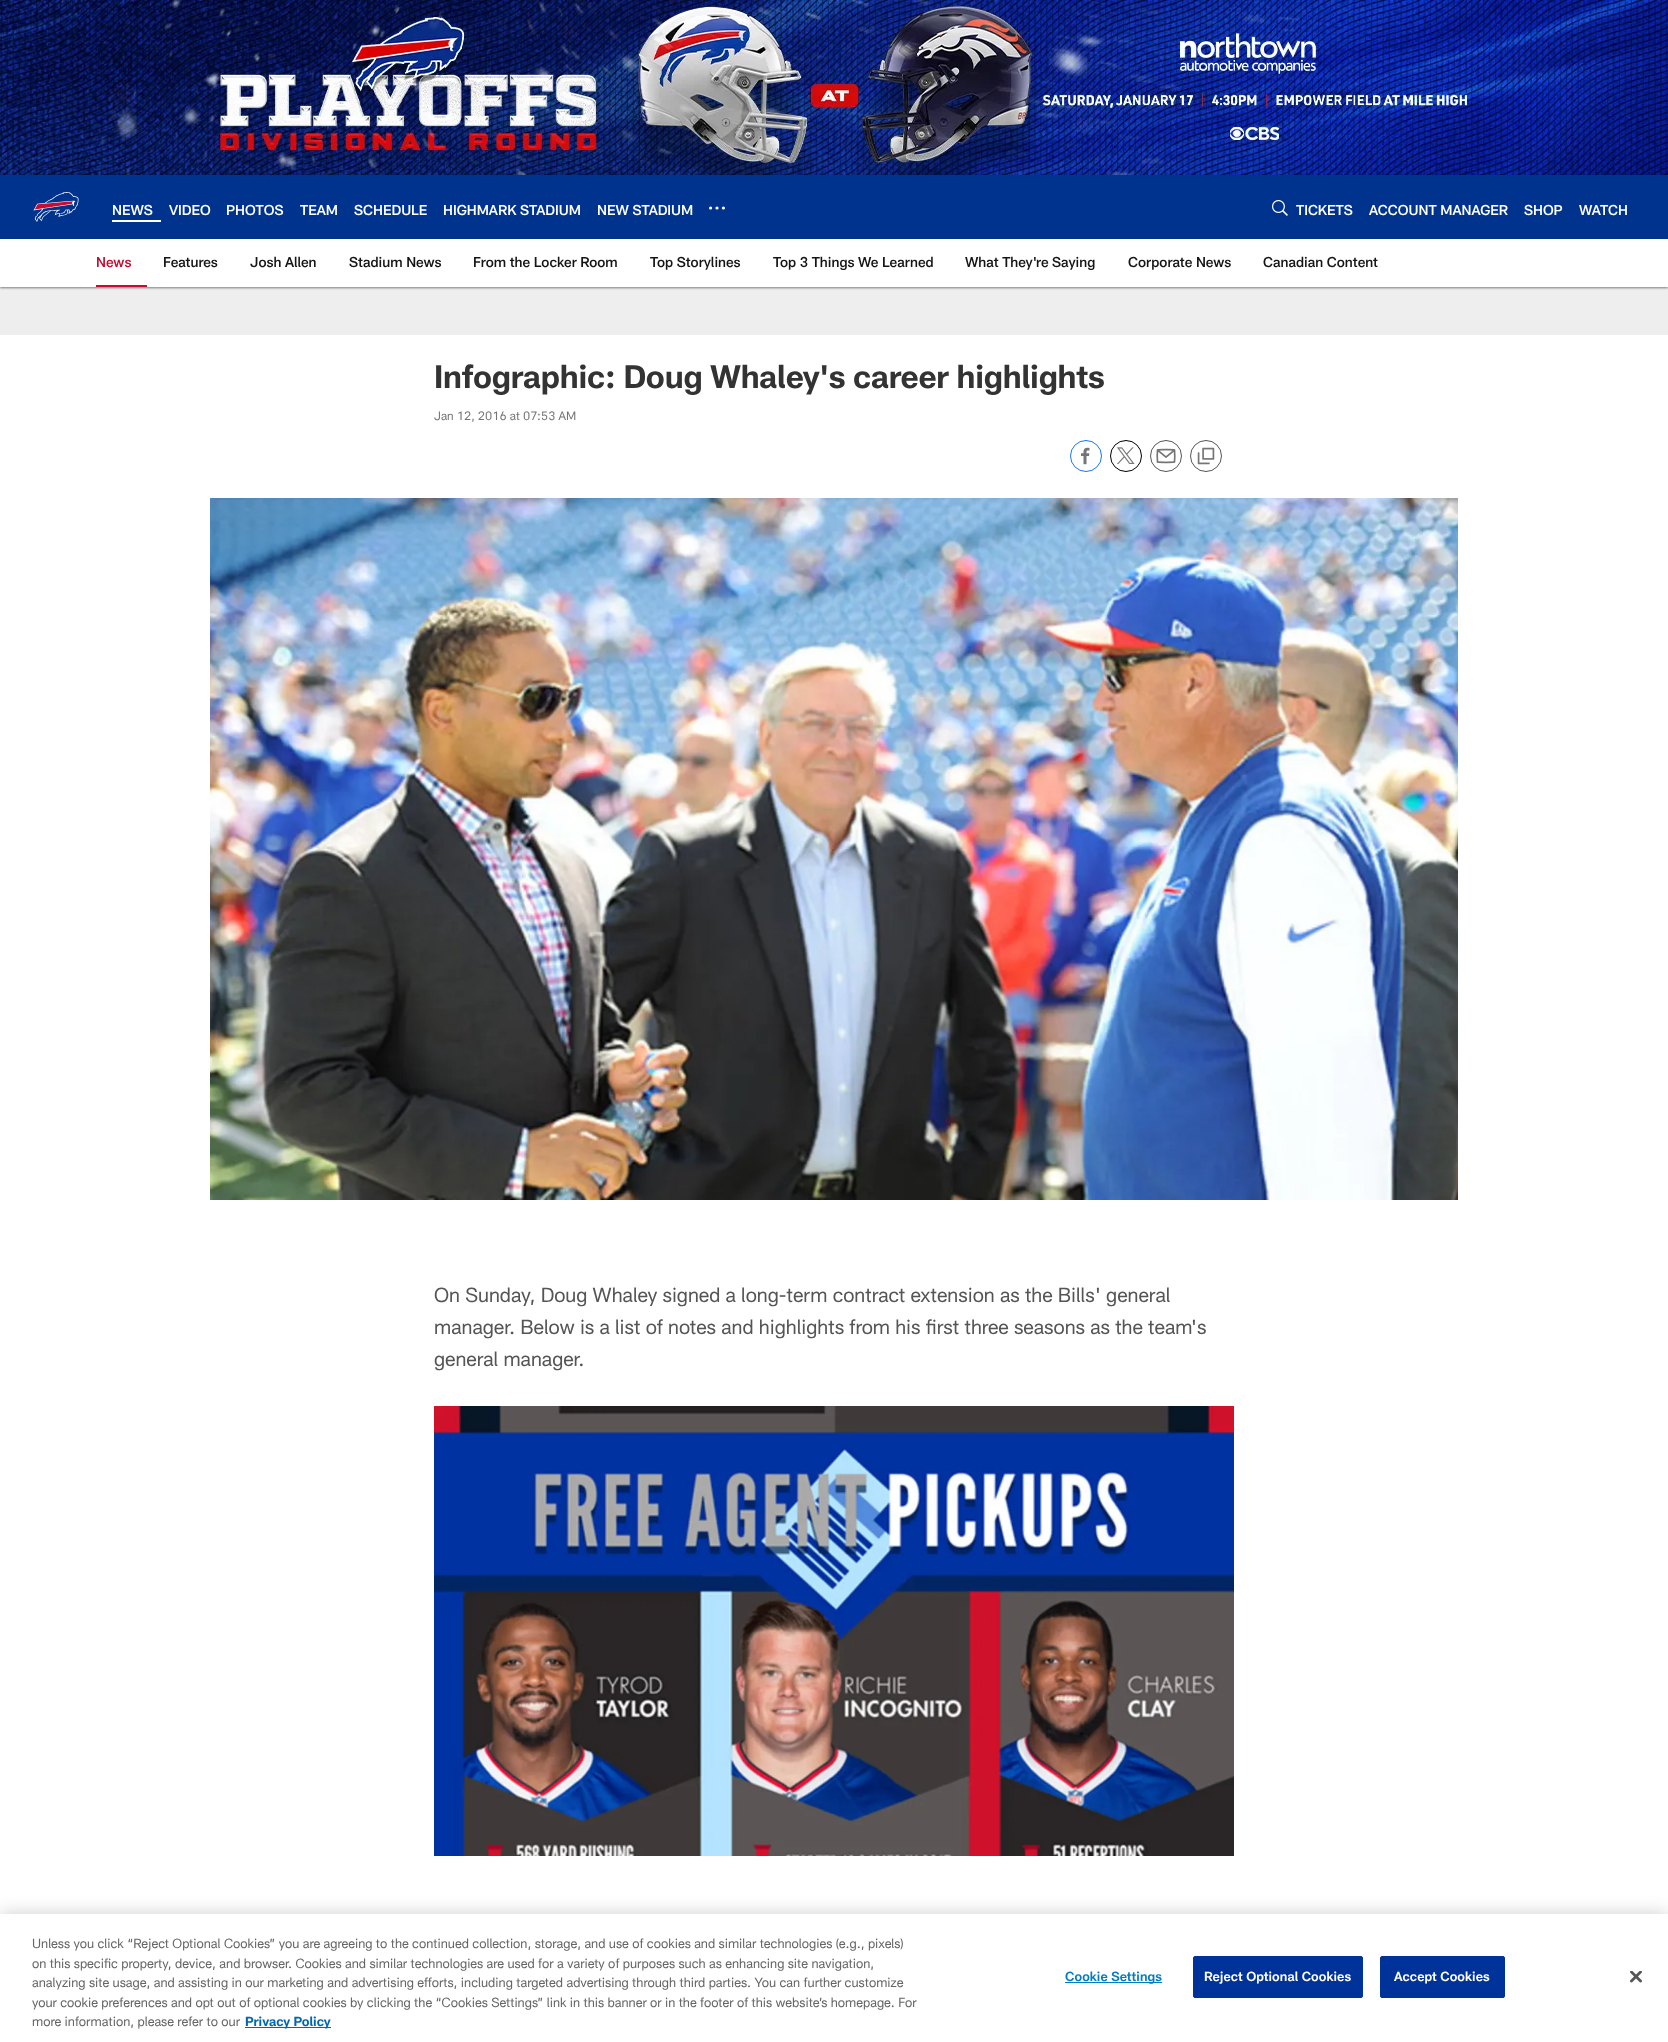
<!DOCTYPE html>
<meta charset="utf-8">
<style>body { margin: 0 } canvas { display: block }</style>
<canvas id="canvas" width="1668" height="2042"></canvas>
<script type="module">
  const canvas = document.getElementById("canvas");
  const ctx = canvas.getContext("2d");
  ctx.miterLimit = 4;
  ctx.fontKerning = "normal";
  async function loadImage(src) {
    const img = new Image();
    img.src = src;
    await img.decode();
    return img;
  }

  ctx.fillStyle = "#eeeeee";
  ctx.fillRect(0, 0, 1668, 2042);
  ctx.drawImage(await loadImage("img1.png"), 0, 0, 1668, 175);
  ctx.fillStyle = "rgba(0, 0, 0, 0.47)";
  ctx.filter = "blur(1px)";
  ctx.beginPath();
  ctx.rect(0, 176, 1668, 64);
  ctx.fill();
  ctx.filter = "none";
  ctx.fillStyle = "#00338d";
  ctx.fillRect(0, 175, 1668, 64);
  ctx.drawImage(await loadImage("img2.png"), 33, 192, 46, 30);
  ctx.fillStyle = "#ffffff";
  ctx.fillRect(112, 220, 49, 2);
  ctx.font = "500 14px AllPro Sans";
  ctx.fillText("NEWS", 112, 215);
  ctx.fillText("VIDEO", 169, 215);
  ctx.fillText("PHOTOS", 226, 215);
  ctx.fillText("TEAM", 300, 215);
  ctx.fillText("SCHEDULE", 354, 215);
  ctx.fillText("HIGHMARK STADIUM", 443, 215);
  ctx.fillText("NEW STADIUM", 597, 215);
  ctx.beginPath();
  ctx.arc(723.4, 208, 1.6, 0, Math.PI * 2);
  ctx.fill();
  ctx.beginPath();
  ctx.arc(717, 208, 1.6, 0, Math.PI * 2);
  ctx.fill();
  ctx.beginPath();
  ctx.arc(710.6, 208, 1.6, 0, Math.PI * 2);
  ctx.fill();
  ctx.drawImage(await loadImage("img3.png"), 1272, 200, 16, 16);
  ctx.fillText("TICKETS", 1296, 215);
  ctx.fillText("ACCOUNT MANAGER", 1369, 215);
  ctx.fillText("SHOP", 1524, 215);
  ctx.fillText("WATCH", 1579, 215);
  ctx.fillStyle = "rgba(0, 0, 0, 0.47)";
  ctx.filter = "blur(1px)";
  ctx.beginPath();
  ctx.rect(0, 240, 1668, 48);
  ctx.fill();
  ctx.filter = "none";
  ctx.fillStyle = "#ffffff";
  ctx.fillRect(0, 239, 1668, 48);
  ctx.fillStyle = "#c60c30";
  ctx.fillRect(96, 285, 51, 2);
  ctx.fillText("News", 96, 267);
  ctx.fillStyle = "#151515";
  ctx.fillText("Features", 163, 267);
  ctx.fillText("Josh Allen", 250, 267);
  ctx.fillText("Stadium News", 349, 267);
  ctx.fillText("From the Locker Room", 473, 267);
  ctx.fillText("Top Storylines", 650, 267);
  ctx.fillText("Top 3 Things We Learned", 773, 267);
  ctx.fillText("What They're Saying", 965, 267);
  ctx.fillText("Corporate News", 1128, 267);
  ctx.fillText("Canadian Content", 1263, 267);
  ctx.fillStyle = "#ffffff";
  ctx.fillRect(0, 335, 1668, 1579);
  ctx.letterSpacing = "-0.2px";
  ctx.font = "bold 32px AllPro Sans";
  ctx.fillStyle = "#333333";
  ctx.fillText("Infographic: Doug Whaley's career highlights", 434, 388);
  ctx.letterSpacing = "0px";
  ctx.font = "12px AllPro Sans";
  ctx.fillStyle = "#757575";
  ctx.fillText("Jan 12, 2016 at 07:53 AM", 434, 420);
  ctx.beginPath();
  ctx.arc(1086, 456, 15.5, 0, Math.PI * 2);
  ctx.strokeStyle = "#1877f2";
  ctx.stroke();
  ctx.drawImage(await loadImage("img4.png"), 1081, 447, 9, 18);
  ctx.beginPath();
  ctx.arc(1126, 456, 15.5, 0, Math.PI * 2);
  ctx.strokeStyle = "#000000";
  ctx.stroke();
  ctx.drawImage(await loadImage("img5.png"), 1117, 447, 18, 17);
  ctx.beginPath();
  ctx.arc(1166, 456, 15.5, 0, Math.PI * 2);
  ctx.strokeStyle = "#555555";
  ctx.stroke();
  ctx.drawImage(await loadImage("img6.png"), 1156, 448, 20, 16);
  ctx.beginPath();
  ctx.arc(1206, 456, 15.5, 0, Math.PI * 2);
  ctx.stroke();
  ctx.drawImage(await loadImage("img7.png"), 1197, 447, 18, 18);
  ctx.drawImage(await loadImage("img8.png"), 210, 498, 1248, 702);
  ctx.font = "20px AllPro Sans";
  ctx.fillStyle = "#555555";
  ctx.fillText("On Sunday, Doug Whaley signed a long-term contract extension as the Bills' general", 434, 1302);
  ctx.fillText("manager. Below is a list of notes and highlights from his first three seasons as the team's", 434, 1334);
  ctx.fillText("general manager.", 434, 1366);
  ctx.drawImage(await loadImage("img9.png"), 434, 1406, 800, 450);
  ctx.fillStyle = "rgba(0, 0, 0, 0.2)";
  ctx.filter = "blur(9px)";
  ctx.beginPath();
  ctx.rect(0, 1914, 1668, 128);
  ctx.fill();
  ctx.filter = "none";
  ctx.fillStyle = "#ffffff";
  ctx.fillRect(0, 1914, 1668, 128);
  ctx.font = "13px AllPro Sans";
  ctx.fillStyle = "#666666";
  ctx.fillText("Unless you click “Reject Optional Cookies” you are agreeing to the continued collection, storage, and use of cookies and similar technologies (e.g., pixels)", 32, 1948);
  ctx.fillText("on this specific property, device, and browser. Cookies and similar technologies are used for a variety of purposes such as enhancing site navigation,", 32, 1968);
  ctx.fillText("analyzing site usage, and assisting in our marketing and advertising efforts, including targeted advertising through third parties. You can further customize", 32, 1987);
  ctx.fillText("your cookie preferences and opt out of optional cookies by clicking the “Cookies Settings” link in this banner or in the footer of this website’s homepage. For", 32, 2007);
  ctx.fillText("more information, please refer to our", 32, 2026);
  ctx.fillStyle = "#0067b1";
  ctx.fillRect(245, 2027, 86, 1);
  ctx.font = "bold 13px AllPro Sans";
  ctx.fillText("Privacy Policy", 245, 2026);
  ctx.fillStyle = "#007dc3";
  ctx.fillRect(1065, 1982, 97, 1);
  ctx.letterSpacing = "0.1px";
  ctx.font = "600 13px AllPro Sans";
  ctx.fillText("Cookie Settings", 1065, 1981);
  ctx.fillStyle = "#003399";
  ctx.beginPath();
  ctx.roundRect(1193.5, 1956.5, 169, 41, 1.5);
  ctx.fill();
  ctx.strokeStyle = "#003399";
  ctx.stroke();
  ctx.fillStyle = "#ffffff";
  ctx.fillText("Reject Optional Cookies", 1204, 1981);
  ctx.fillStyle = "#003399";
  ctx.beginPath();
  ctx.roundRect(1380.5, 1956.5, 124, 41, 1.5);
  ctx.fill();
  ctx.stroke();
  ctx.fillStyle = "#ffffff";
  ctx.fillText("Accept Cookies", 1394, 1981);
  ctx.drawImage(await loadImage("img10.png"), 1630, 1971, 12, 12);
</script>
